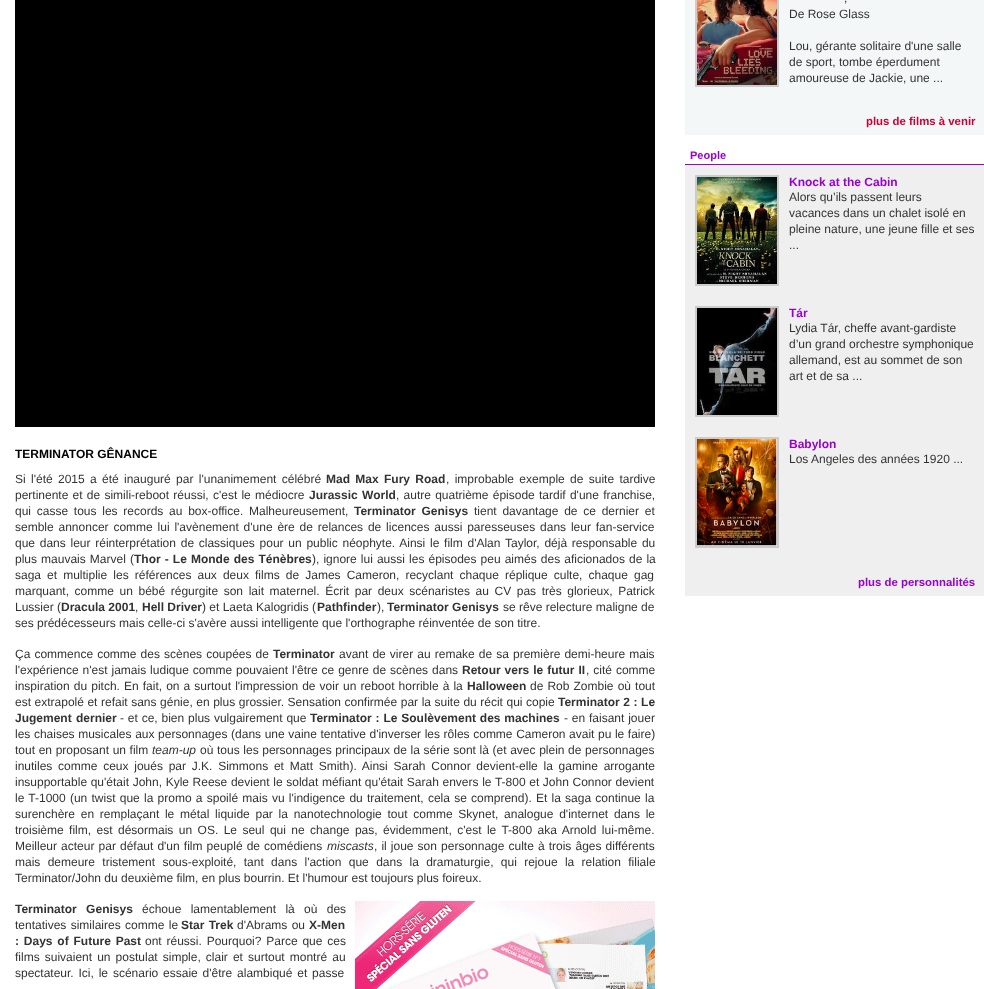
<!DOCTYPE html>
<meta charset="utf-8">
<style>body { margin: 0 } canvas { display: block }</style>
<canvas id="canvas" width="984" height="989"></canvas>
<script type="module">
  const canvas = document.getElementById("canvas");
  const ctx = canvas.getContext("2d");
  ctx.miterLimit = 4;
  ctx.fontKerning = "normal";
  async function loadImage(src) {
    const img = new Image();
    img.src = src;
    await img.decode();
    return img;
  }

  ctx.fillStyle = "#ffffff";
  ctx.fillRect(0, 0, 984, 989);
  ctx.fillStyle = "#f4f7f8";
  ctx.fillRect(685, 0, 299, 135);
  ctx.strokeStyle = "#cccccc";
  ctx.lineWidth = 2;
  ctx.strokeRect(696, -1, 82, 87);
  ctx.drawImage(await loadImage("img1.png"), 697, 0, 80, 85);
  ctx.font = "12px Liberation Sans";
  ctx.fillStyle = "#333333";
  ctx.fillText(",", 844, 2);
  ctx.fillText("De Rose Glass", 789, 18);
  ctx.fillText("Lou, gérante solitaire d'une salle", 789, 50);
  ctx.fillText("de sport, tombe éperdument", 789, 66);
  ctx.fillText("amoureuse de Jackie, une ...", 789, 82);
  ctx.font = "bold 11.4px Liberation Sans";
  ctx.fillStyle = "#cc0033";
  ctx.fillText("plus de films à venir", 866, 125);
  ctx.fillStyle = "#efefef";
  ctx.fillRect(685, 165, 299, 431);
  ctx.fillStyle = "#9900cc";
  ctx.fillRect(685, 164, 299, 1);
  ctx.font = "bold 11px Liberation Sans";
  ctx.fillText("People", 690, 159);
  ctx.strokeRect(696, 176, 82, 109);
  ctx.drawImage(await loadImage("img2.png"), 697, 177, 80, 107);
  ctx.font = "bold 12px Liberation Sans";
  ctx.fillText("Knock at the Cabin", 789, 186);
  ctx.font = "12px Liberation Sans";
  ctx.fillStyle = "#333333";
  ctx.fillText("Alors qu’ils passent leurs", 789, 201);
  ctx.fillText("vacances dans un chalet isolé en", 789, 217);
  ctx.fillText("pleine nature, une jeune fille et ses", 789, 233);
  ctx.fillText("...", 789, 249);
  ctx.strokeRect(696, 307, 82, 109);
  ctx.drawImage(await loadImage("img3.png"), 697, 308, 80, 107);
  ctx.font = "bold 12px Liberation Sans";
  ctx.fillStyle = "#9900cc";
  ctx.fillText("Tár", 789, 317);
  ctx.font = "12px Liberation Sans";
  ctx.fillStyle = "#333333";
  ctx.fillText("Lydia Tár, cheffe avant-gardiste", 789, 332);
  ctx.fillText("d’un grand orchestre symphonique", 789, 348);
  ctx.fillText("allemand, est au sommet de son", 789, 364);
  ctx.fillText("art et de sa ...", 789, 380);
  ctx.strokeRect(696, 438, 82, 109);
  ctx.drawImage(await loadImage("img4.png"), 697, 439, 80, 107);
  ctx.font = "bold 12px Liberation Sans";
  ctx.fillStyle = "#9900cc";
  ctx.fillText("Babylon", 789, 448);
  ctx.font = "12px Liberation Sans";
  ctx.fillStyle = "#333333";
  ctx.fillText("Los Angeles des années 1920 ...", 789, 463);
  ctx.font = "bold 11.4px Liberation Sans";
  ctx.fillStyle = "#9900cc";
  ctx.fillText("plus de personnalités", 858, 586);
  ctx.fillStyle = "#000000";
  ctx.fillRect(15, 0, 640, 427);
  ctx.font = "bold 12px Liberation Sans";
  ctx.fillText("TERMINATOR GÊNANCE", 15, 458);
  ctx.wordSpacing = "2px";
  ctx.font = "12px Liberation Sans";
  ctx.fillStyle = "#333333";
  ctx.fillText("Si l'été 2015 a été inauguré par l'unanimement célébré", 15, 483);
  ctx.font = "bold 12px Liberation Sans";
  ctx.fillText("Mad Max Fury Road", 326, 483);
  ctx.font = "12px Liberation Sans";
  ctx.fillText(", improbable exemple de suite tardive", 446, 483);
  ctx.wordSpacing = "0.9px";
  ctx.fillText("pertinente et de simili-reboot réussi, c'est le médiocre", 15, 499);
  ctx.wordSpacing = "1px";
  ctx.font = "bold 12px Liberation Sans";
  ctx.fillText("Jurassic World", 309, 499);
  ctx.wordSpacing = "0.9px";
  ctx.font = "12px Liberation Sans";
  ctx.fillText(", autre quatrième épisode tardif d'une franchise,", 396, 499);
  ctx.wordSpacing = "2.4px";
  ctx.fillText("qui casse tous les records au box-office. Malheureusement,", 15, 515);
  ctx.font = "bold 12px Liberation Sans";
  ctx.fillText("Terminator Genisys", 354, 515);
  ctx.font = "12px Liberation Sans";
  ctx.fillText("tient davantage de ce dernier et", 474, 515);
  ctx.wordSpacing = "1.5px";
  ctx.fillText("semble annoncer comme lui l'avènement d'une ère de relances de licences aussi paresseuses dans leur fan-service", 15, 531);
  ctx.wordSpacing = "1.4px";
  ctx.fillText("que dans leur réinterprétation de classiques pour un public néophyte. Ainsi le film d'Alan Taylor, déjà responsable du", 15, 547);
  ctx.wordSpacing = "0.75px";
  ctx.fillText("plus mauvais Marvel (", 15, 563);
  ctx.font = "bold 12px Liberation Sans";
  ctx.fillText("Thor - Le Monde des Ténèbres", 134, 563);
  ctx.font = "12px Liberation Sans";
  ctx.fillText("), ignore lui aussi les épisodes peu aimés des aficionados de la", 312, 563);
  ctx.wordSpacing = "2.75px";
  ctx.fillText("saga et multiplie les références aux deux films de James Cameron, recyclant chaque réplique culte, chaque gag", 15, 579);
  ctx.wordSpacing = "2.25px";
  ctx.fillText("marquant, comme un bébé régurgite son lait maternel. Écrit par deux scénaristes au CV pas très glorieux, Patrick", 15, 595);
  ctx.wordSpacing = "0px";
  ctx.fillText("Lussier (", 15, 611);
  ctx.font = "bold 12px Liberation Sans";
  ctx.fillText("Dracula 2001", 61, 611);
  ctx.font = "12px Liberation Sans";
  ctx.fillText(",", 135, 611);
  ctx.font = "bold 12px Liberation Sans";
  ctx.fillText("Hell Driver", 142, 611);
  ctx.font = "12px Liberation Sans";
  ctx.fillText(") et Laeta Kalogridis (", 202, 611);
  ctx.font = "bold 12px Liberation Sans";
  ctx.fillText("Pathfinder", 317, 611);
  ctx.font = "12px Liberation Sans";
  ctx.fillText("),", 377, 611);
  ctx.font = "bold 12px Liberation Sans";
  ctx.fillText("Terminator Genisys", 387, 611);
  ctx.font = "12px Liberation Sans";
  ctx.fillText("se rêve relecture maligne de", 503, 611);
  ctx.fillText("ses prédécesseurs mais celle-ci s'avère aussi intelligente que l'orthographe réinventée de son titre.", 15, 627);
  ctx.wordSpacing = "0.75px";
  ctx.fillText("Ça commence comme des scènes coupées de", 15, 658);
  ctx.wordSpacing = "0px";
  ctx.font = "bold 12px Liberation Sans";
  ctx.fillText("Terminator", 273, 658);
  ctx.wordSpacing = "0.75px";
  ctx.font = "12px Liberation Sans";
  ctx.fillText("avant de virer au remake de sa première demi-heure mais", 339, 658);
  ctx.wordSpacing = "0.6px";
  ctx.fillText("l'expérience n'est jamais ludique comme pouvaient l'être ce genre de scènes dans", 15, 674);
  ctx.font = "bold 12px Liberation Sans";
  ctx.fillText("Retour vers le futur II", 462, 674);
  ctx.font = "12px Liberation Sans";
  ctx.fillText(", cité comme", 586, 674);
  ctx.wordSpacing = "0.75px";
  ctx.fillText("inspiration du pitch. En fait, on a surtout l'impression de voir un reboot horrible à la", 15, 690);
  ctx.wordSpacing = "0px";
  ctx.font = "bold 12px Liberation Sans";
  ctx.fillText("Halloween", 467, 690);
  ctx.wordSpacing = "0.75px";
  ctx.font = "12px Liberation Sans";
  ctx.fillText("de Rob Zombie où tout", 530, 690);
  ctx.wordSpacing = "0.2px";
  ctx.fillText("est extrapolé et refait sans génie, en plus grossier. Sensation confirmée par la suite du récit qui copie", 15, 706);
  ctx.font = "bold 12px Liberation Sans";
  ctx.fillText("Terminator 2 : Le", 558, 706);
  ctx.wordSpacing = "1px";
  ctx.fillText("Jugement dernier", 15, 722);
  ctx.wordSpacing = "0.5px";
  ctx.font = "12px Liberation Sans";
  ctx.fillText("- et ce, bien plus vulgairement que", 120, 722);
  ctx.font = "bold 12px Liberation Sans";
  ctx.fillText("Terminator : Le Soulèvement des machines", 310, 722);
  ctx.font = "12px Liberation Sans";
  ctx.fillText("- en faisant jouer", 564, 722);
  ctx.wordSpacing = "0.25px";
  ctx.fillText("les chaises musicales aux personnages (dans une vaine tentative d'inverser les rôles comme Cameron avait pu le faire)", 15, 738);
  ctx.wordSpacing = "0.3px";
  ctx.fillText("tout en proposant un film", 15, 754);
  ctx.wordSpacing = "0px";
  ctx.font = "italic 12px Liberation Sans";
  ctx.fillText("team-up", 152, 754);
  ctx.wordSpacing = "0.3px";
  ctx.font = "12px Liberation Sans";
  ctx.fillText("où tous les personnages principaux de la série sont là (et avec plein de personnages", 200, 754);
  ctx.wordSpacing = "2.4px";
  ctx.fillText("inutiles comme ceux joués par J.K. Simmons et Matt Smith). Ainsi Sarah Connor devient-elle la gamine arrogante", 15, 770);
  ctx.wordSpacing = "0.3px";
  ctx.fillText("insupportable qu'était John, Kyle Reese devient le soldat méfiant qu'était Sarah envers le T-800 et John Connor devient", 15, 786);
  ctx.wordSpacing = "0.9px";
  ctx.fillText("le T-1000 (un twist que la promo a spoilé mais vu l'indigence du traitement, cela se comprend). Et la saga continue la", 15, 802);
  ctx.wordSpacing = "2.4px";
  ctx.fillText("surenchère en remplaçant le métal liquide par la nanotechnologie tout comme Skynet, analogue d'internet dans le", 15, 818);
  ctx.wordSpacing = "2.1px";
  ctx.fillText("troisième film, est désormais un OS. Le seul qui ne change pas, évidemment, c'est le T-800 aka Arnold lui-même.", 15, 834);
  ctx.wordSpacing = "0.75px";
  ctx.fillText("Meilleur acteur par défaut d'un film peuplé de comédiens", 15, 850);
  ctx.wordSpacing = "0px";
  ctx.font = "italic 12px Liberation Sans";
  ctx.fillText("miscasts", 327, 850);
  ctx.wordSpacing = "0.75px";
  ctx.font = "12px Liberation Sans";
  ctx.fillText(", il joue son personnage culte à trois âges différents", 374, 850);
  ctx.wordSpacing = "4px";
  ctx.fillText("mais demeure tristement sous-exploité, tant dans l'action que dans la dramaturgie, qui rejoue la relation filiale", 15, 866);
  ctx.wordSpacing = "0px";
  ctx.fillText("Terminator/John du deuxième film, en plus bourrin. Et l'humour est toujours plus foireux.", 15, 882);
  ctx.wordSpacing = "6px";
  ctx.font = "bold 12px Liberation Sans";
  ctx.fillText("Terminator Genisys", 15, 913);
  ctx.font = "12px Liberation Sans";
  ctx.fillText("échoue lamentablement là où des", 142, 913);
  ctx.wordSpacing = "1px";
  ctx.fillText("tentatives similaires comme le", 15, 929);
  ctx.font = "bold 12px Liberation Sans";
  ctx.fillText("Star Trek", 181, 929);
  ctx.font = "12px Liberation Sans";
  ctx.fillText("d'Abrams ou", 237, 929);
  ctx.wordSpacing = "0px";
  ctx.font = "bold 12px Liberation Sans";
  ctx.fillText("X-Men", 309, 929);
  ctx.wordSpacing = "1.5px";
  ctx.fillText(": Days of Future Past", 15, 945);
  ctx.font = "12px Liberation Sans";
  ctx.fillText("ont réussi. Pourquoi? Parce que ces", 145, 945);
  ctx.wordSpacing = "1.75px";
  ctx.fillText("films suivaient un postulat simple, clair et surtout montré au", 15, 961);
  ctx.wordSpacing = "1.5px";
  ctx.fillText("spectateur. Ici, le scénario essaie d'être alambiqué et passe", 15, 977);
  ctx.drawImage(await loadImage("img5.png"), 355, 901, 300, 88);
</script>
